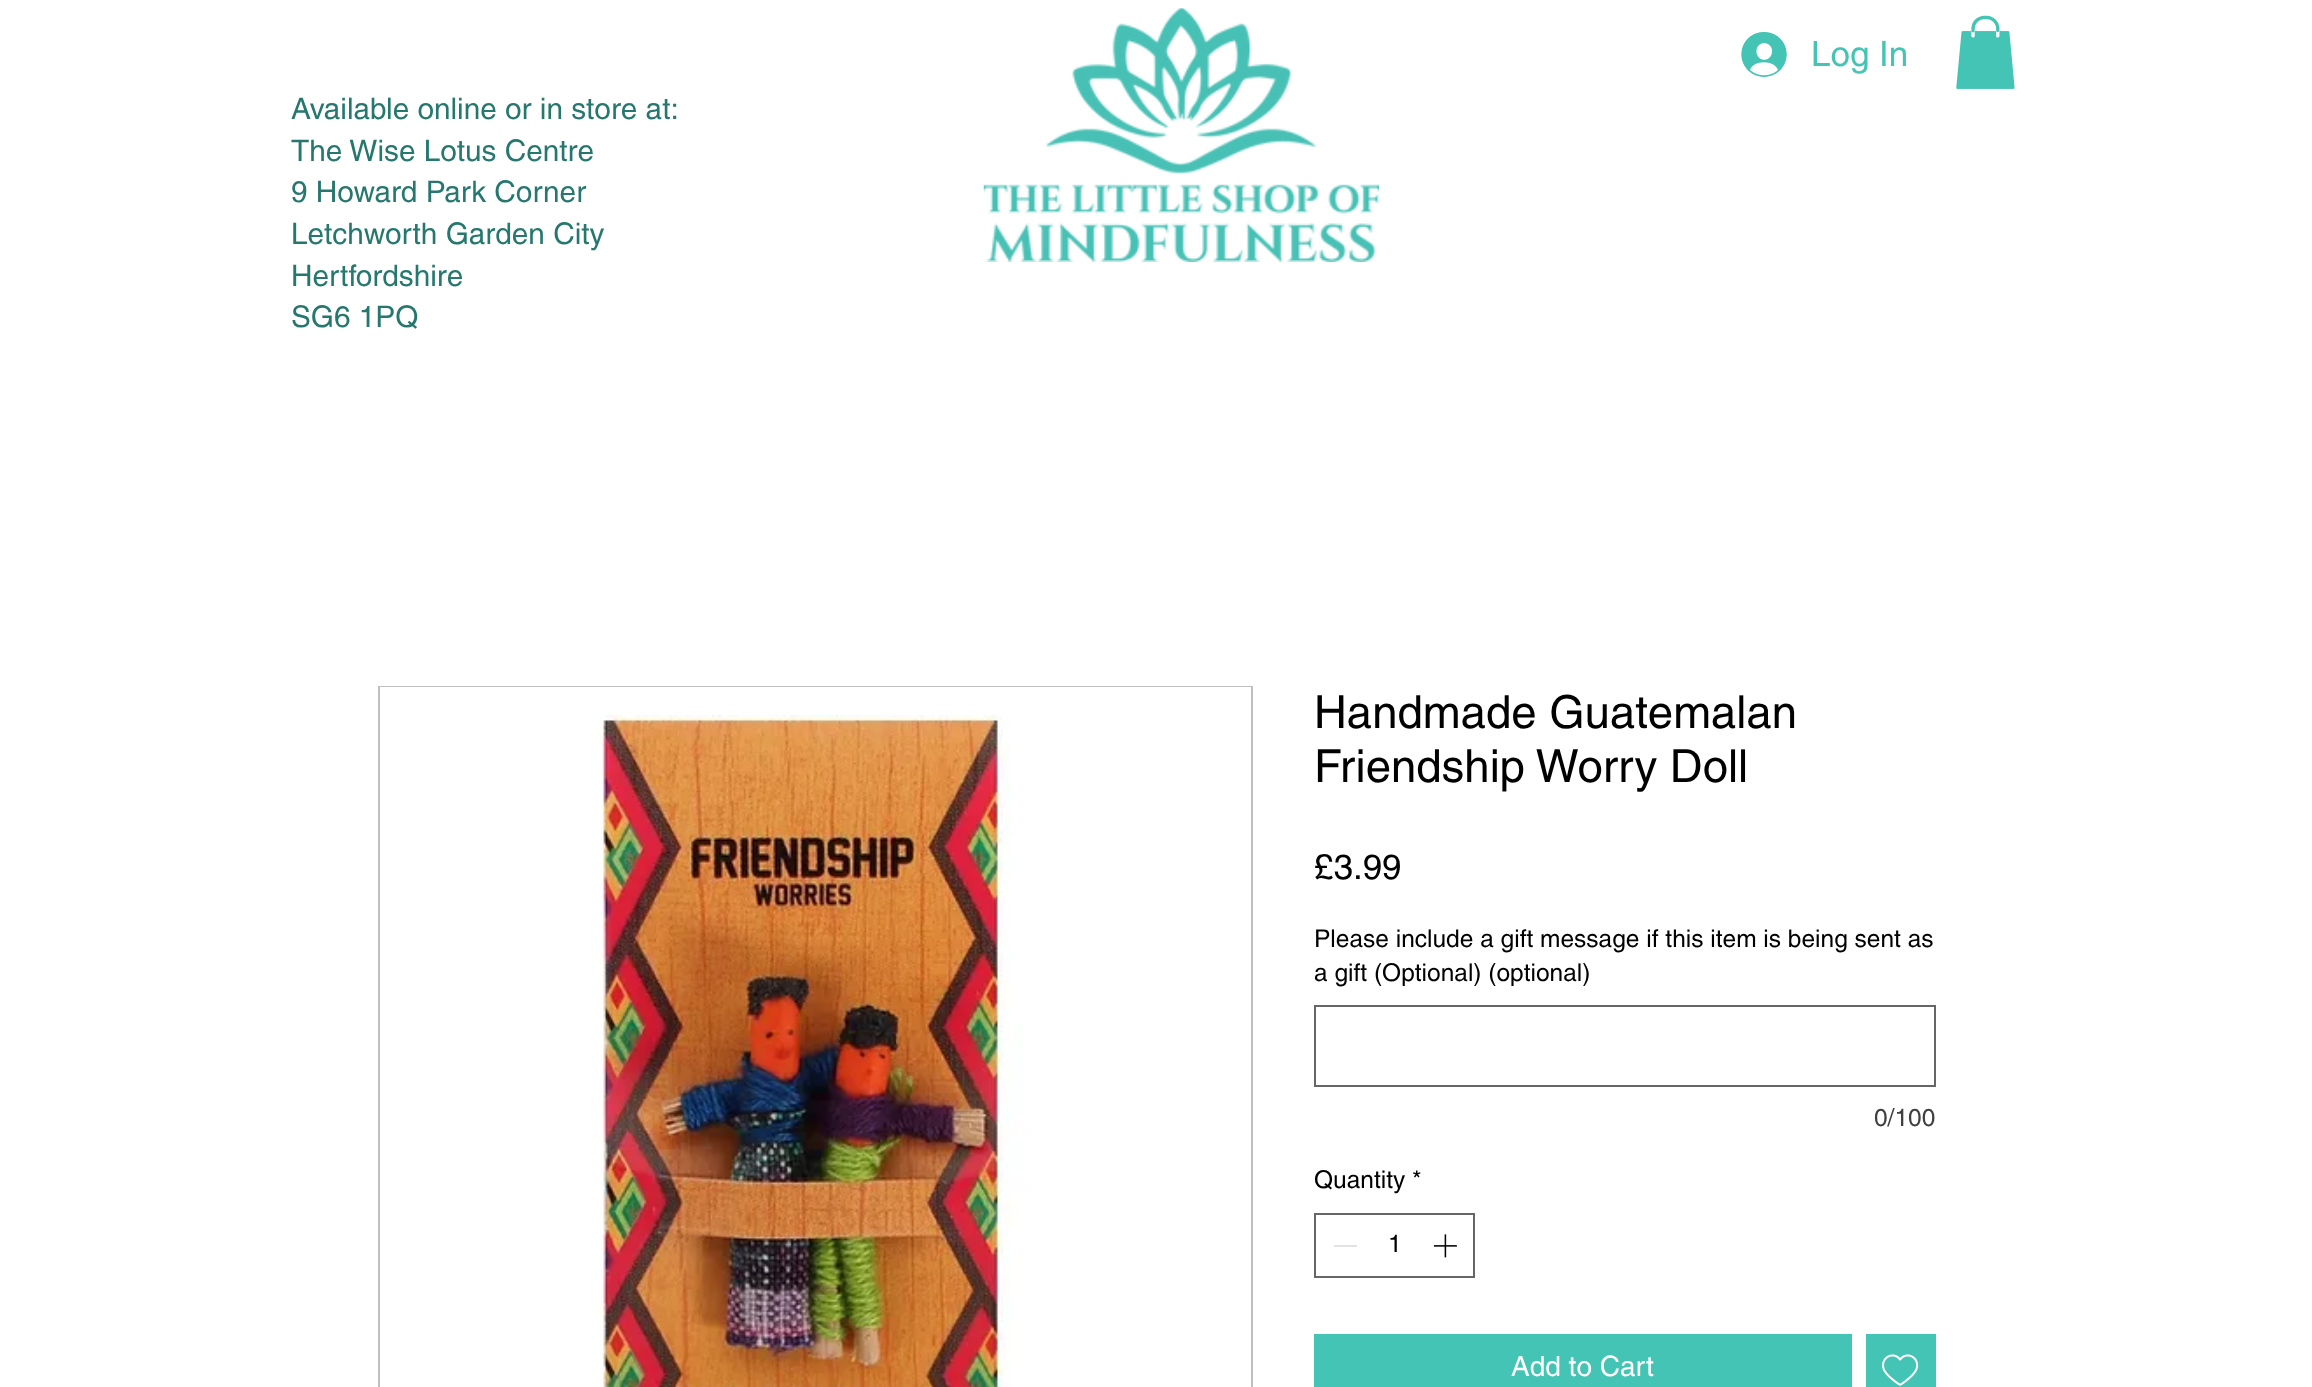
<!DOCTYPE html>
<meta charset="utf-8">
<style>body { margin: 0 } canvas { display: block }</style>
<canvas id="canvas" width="2312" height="1387"></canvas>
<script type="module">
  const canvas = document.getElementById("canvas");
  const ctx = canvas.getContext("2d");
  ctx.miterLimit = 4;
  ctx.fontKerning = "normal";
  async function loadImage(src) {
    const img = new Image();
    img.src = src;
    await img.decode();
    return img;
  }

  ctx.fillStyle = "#ffffff";
  ctx.fillRect(0, 0, 2312, 1387);
  ctx.drawImage(await loadImage("img1.png"), 1741, 32, 46, 45);
  ctx.font = "35px helvetica";
  ctx.fillStyle = "#44c4b4";
  ctx.fillText("Log In", 1811, 66);
  ctx.drawImage(await loadImage("img2.png"), 1956, 15, 59, 74);
  ctx.font = "29.75px helvetica";
  ctx.fillStyle = "#26786e";
  ctx.fillText("Available online or in store at:", 291, 119);
  ctx.fillText("The Wise Lotus Centre", 291, 161);
  ctx.fillText("9 Howard Park Corner", 291, 202);
  ctx.fillText("Letchworth Garden City", 291, 244);
  ctx.fillText("Hertfordshire", 291, 286);
  ctx.fillText("SG6 1PQ", 291, 327);
  ctx.drawImage(await loadImage("img3.png"), 983, 8, 396, 254);
  ctx.strokeStyle = "#bfbfbf";
  ctx.lineWidth = 2;
  ctx.strokeRect(379, 687, 873, 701);
  ctx.drawImage(await loadImage("img4.png"), 380, 687, 871, 700);
  ctx.font = "45.5px helvetica";
  ctx.fillStyle = "#000000";
  ctx.fillText("Handmade Guatemalan", 1314, 728);
  ctx.fillText("Friendship Worry Doll", 1314, 782);
  ctx.font = "35px helvetica";
  ctx.fillText("£3.99", 1314, 879);
  ctx.font = "24.5px helvetica";
  ctx.fillText("Please include a gift message if this item is being sent as", 1314, 947);
  ctx.fillText("a gift (Optional) (optional)", 1314, 981);
  ctx.strokeStyle = "#666666";
  ctx.strokeRect(1315, 1006, 620, 80);
  ctx.fillStyle = "#404040";
  ctx.fillText("0/100", 1874, 1126);
  ctx.fillStyle = "#000000";
  ctx.fillText("Quantity *", 1314, 1188);
  ctx.strokeRect(1315, 1214, 159, 63);
  ctx.fillStyle = "#e3e3e3";
  ctx.fillRect(1334, 1245, 23, 2);
  ctx.fillStyle = "#000000";
  ctx.fillText("1", 1388, 1252);
  ctx.drawImage(await loadImage("img5.png"), 1433, 1234, 24, 24);
  ctx.fillStyle = "#44c4b4";
  ctx.fillRect(1314, 1334, 538, 53);
  ctx.font = "28px helvetica";
  ctx.fillStyle = "#ffffff";
  ctx.fillText("Add to Cart", 1511, 1376);
  ctx.fillStyle = "#44c4b4";
  ctx.fillRect(1866, 1334, 70, 53);
  ctx.drawImage(await loadImage("img6.png"), 1882, 1354, 37, 32);
</script>
